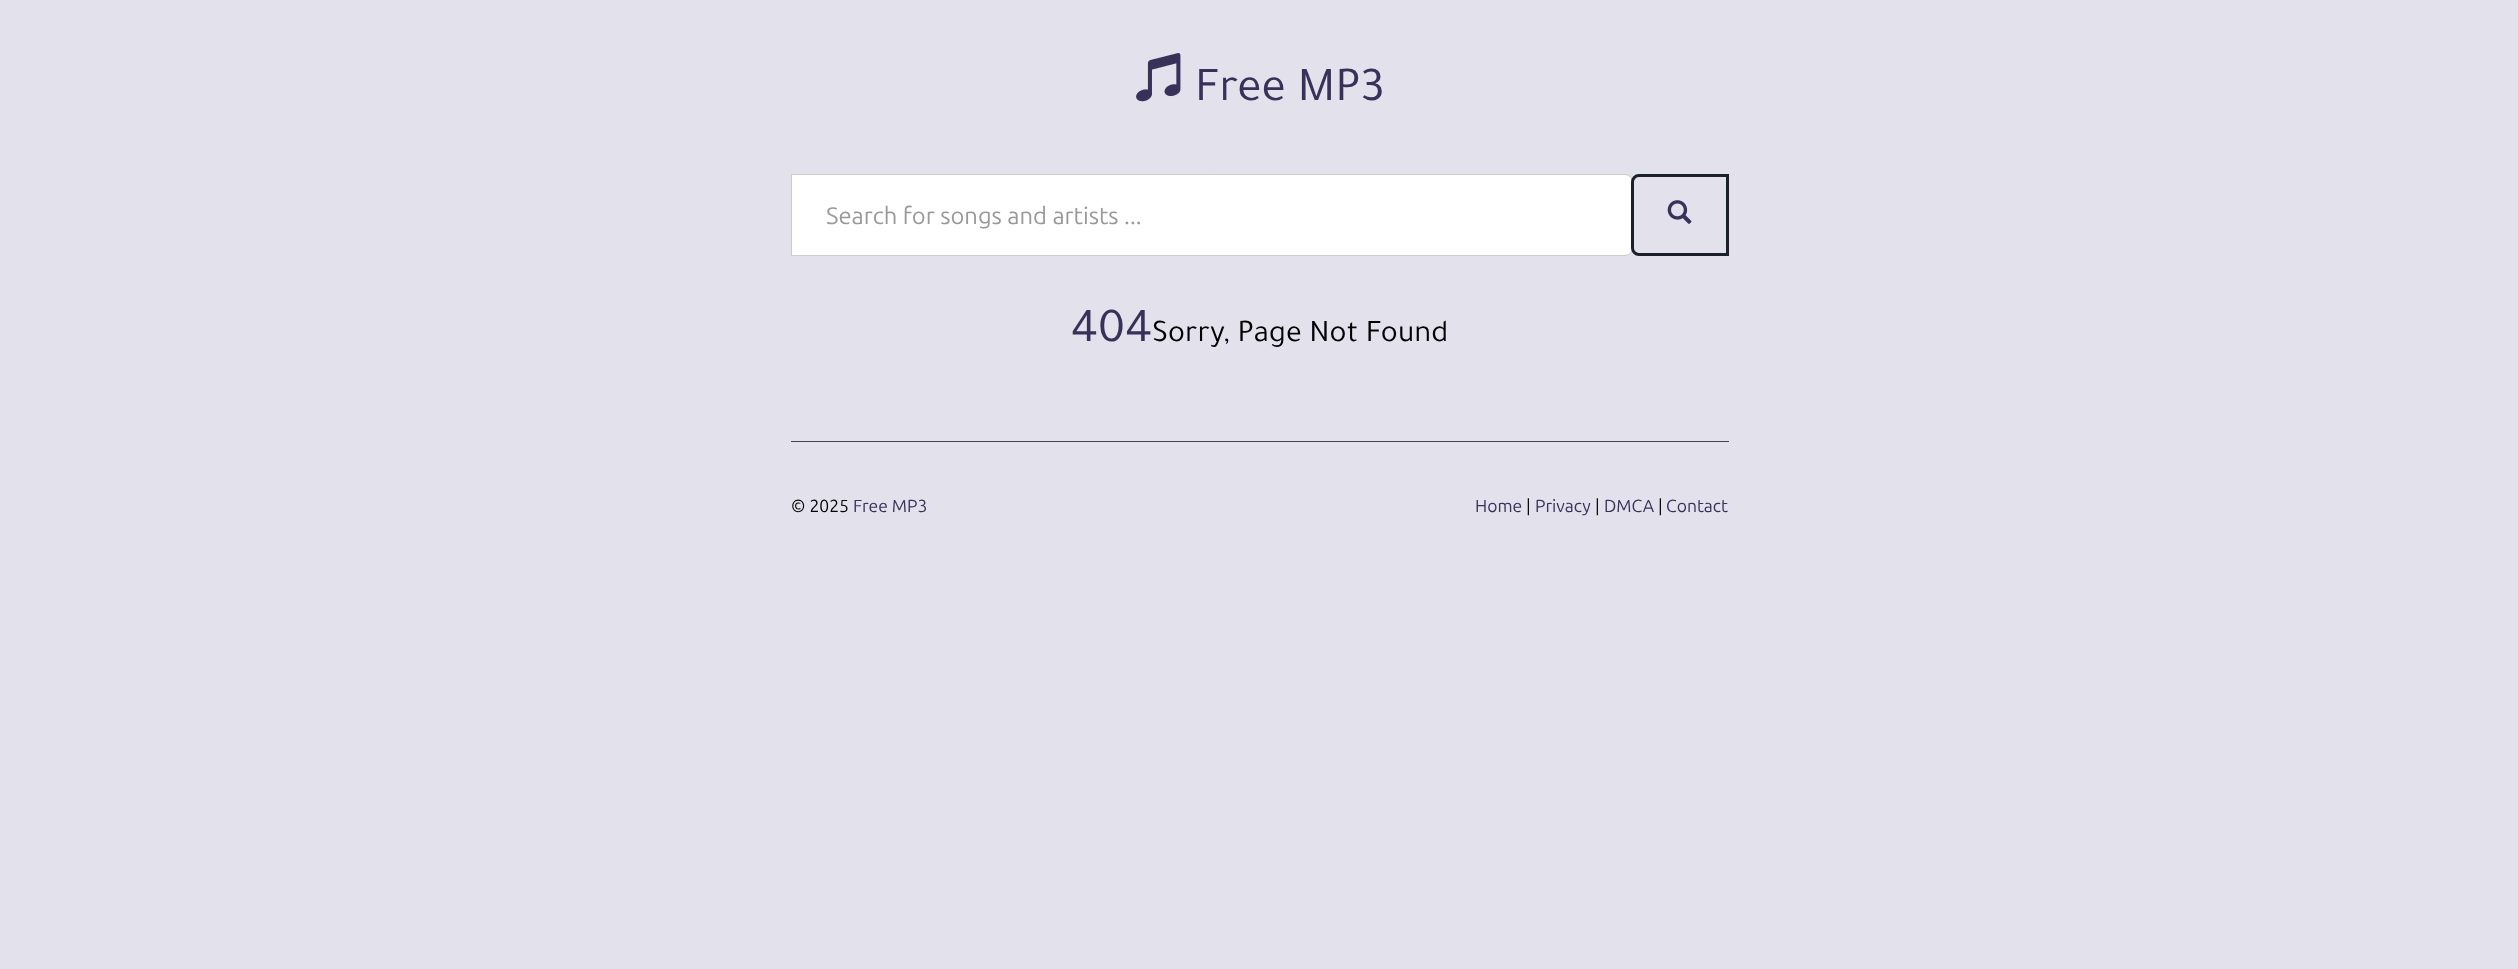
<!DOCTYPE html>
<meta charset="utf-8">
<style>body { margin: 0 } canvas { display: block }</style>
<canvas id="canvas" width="2518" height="969"></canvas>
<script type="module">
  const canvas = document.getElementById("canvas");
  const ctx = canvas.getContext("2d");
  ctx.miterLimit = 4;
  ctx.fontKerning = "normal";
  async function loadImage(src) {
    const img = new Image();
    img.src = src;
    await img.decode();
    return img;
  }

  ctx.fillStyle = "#e3e1ec";
  ctx.fillRect(0, 0, 2518, 969);
  ctx.drawImage(await loadImage("img1.png"), 1136, 53, 45, 49);
  ctx.font = "49px Tajawal";
  ctx.fillStyle = "#38325a";
  ctx.fillText("Free MP3", 1195, 100);
  ctx.fillStyle = "#ffffff";
  ctx.beginPath();
  ctx.roundRect(791.5, 174.5, 841, 81, [0, 7.5, 7.5, 0]);
  ctx.fill();
  ctx.strokeStyle = "#cccccc";
  ctx.stroke();
  ctx.font = "23.75px Ubuntu";
  ctx.fillStyle = "#999999";
  ctx.fillText("Search for songs and artists ...", 826, 224);
  ctx.beginPath();
  ctx.roundRect(1632.5, 175.5, 95, 79, [6.5, 0, 0, 6.5]);
  ctx.strokeStyle = "#1a202c";
  ctx.lineWidth = 3;
  ctx.stroke();
  ctx.drawImage(await loadImage("img2.png"), 1667, 200, 25, 24);
  ctx.font = "49px Tajawal";
  ctx.fillStyle = "#38325a";
  ctx.fillText("404", 1071, 341);
  ctx.font = "31.75px Tajawal";
  ctx.fillStyle = "#000000";
  ctx.fillText("Sorry, Page Not Found", 1152, 341);
  ctx.fillStyle = "#464545";
  ctx.fillRect(791, 441, 938, 1);
  ctx.font = "17.5px Ubuntu";
  ctx.fillStyle = "#000000";
  ctx.fillText("© 2025", 791, 512);
  ctx.fillStyle = "#38325a";
  ctx.fillText("Free MP3", 853, 512);
  ctx.fillText("Home", 1475, 512);
  ctx.fillStyle = "#000000";
  ctx.fillText("|", 1526, 512);
  ctx.fillStyle = "#38325a";
  ctx.fillText("Privacy", 1535, 512);
  ctx.fillStyle = "#000000";
  ctx.fillText("|", 1595, 512);
  ctx.fillStyle = "#38325a";
  ctx.fillText("DMCA", 1604, 512);
  ctx.fillStyle = "#000000";
  ctx.fillText("|", 1658, 512);
  ctx.fillStyle = "#38325a";
  ctx.fillText("Contact", 1666, 512);
</script>
